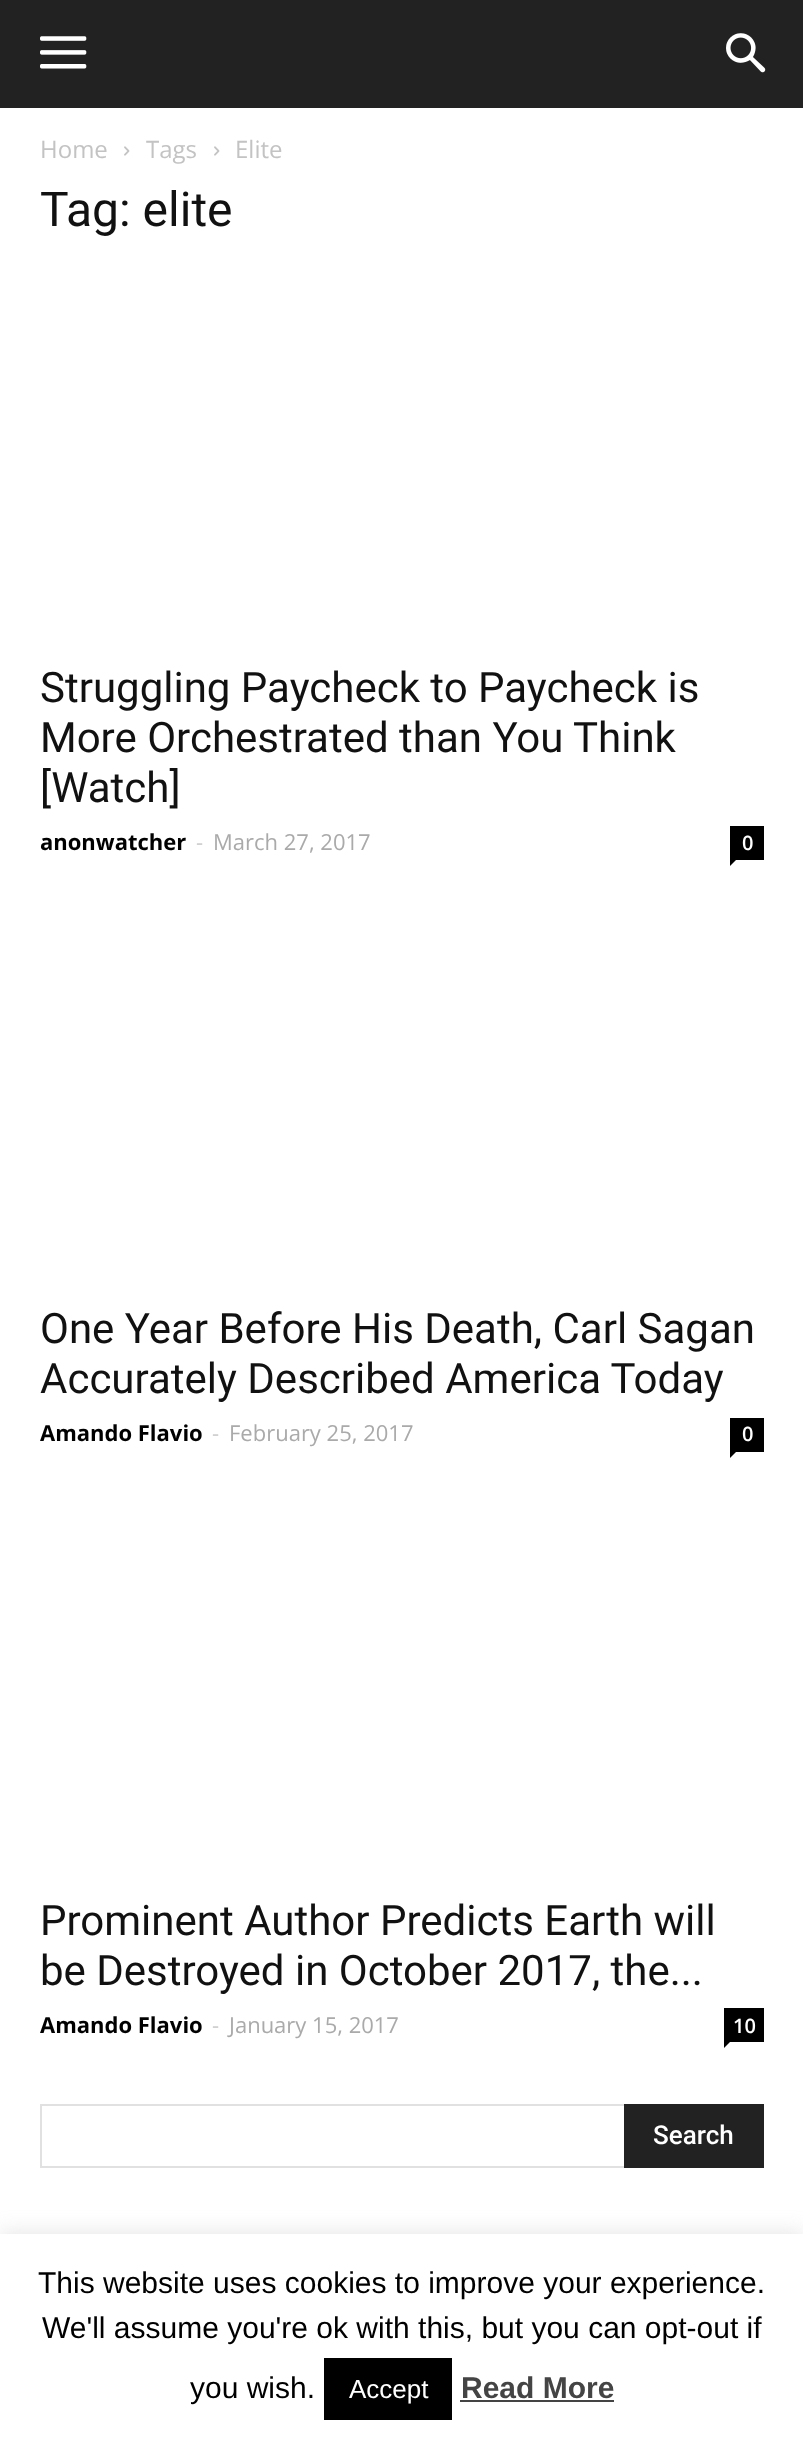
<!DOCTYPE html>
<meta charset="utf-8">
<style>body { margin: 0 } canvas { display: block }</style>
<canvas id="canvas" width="803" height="2443"></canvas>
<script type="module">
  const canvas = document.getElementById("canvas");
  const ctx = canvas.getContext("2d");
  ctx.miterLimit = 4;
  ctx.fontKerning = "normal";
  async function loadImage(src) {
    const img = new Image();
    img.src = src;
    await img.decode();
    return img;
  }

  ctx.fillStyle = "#ffffff";
  ctx.fillRect(0, 0, 803, 2443);
  ctx.fillStyle = "#222222";
  ctx.fillRect(0, 0, 803, 108);
  ctx.drawImage(await loadImage("img1.png"), 40, 36, 47, 33);
  ctx.drawImage(await loadImage("img2.png"), 726, 33, 40, 40);
  ctx.font = "24px Open Sans";
  ctx.fillStyle = "#c3c3c3";
  ctx.fillText("Home", 40, 158);
  ctx.drawImage(await loadImage("img3.png"), 124, 146, 6, 10);
  ctx.fillText("Tags", 146, 158);
  ctx.drawImage(await loadImage("img3.png"), 214, 146, 6, 10);
  ctx.fillText("Elite", 235, 158);
  ctx.font = "48px Roboto";
  ctx.fillStyle = "#111111";
  ctx.fillText("Tag: elite", 40, 226);
  ctx.font = "42px Roboto";
  ctx.fillText("Struggling Paycheck to Paycheck is", 40, 702);
  ctx.fillText("More Orchestrated than You Think", 40, 752);
  ctx.fillText("[Watch]", 40, 802);
  ctx.font = "bold 22px Open Sans";
  ctx.fillStyle = "#000000";
  ctx.fillText("anonwatcher", 40, 850);
  ctx.font = "22px Open Sans";
  ctx.fillStyle = "#cccccc";
  ctx.fillText("-", 196, 850);
  ctx.fillStyle = "#aaaaaa";
  ctx.fillText("March 27, 2017", 213, 850);
  ctx.fillStyle = "#000000";
  ctx.fillRect(730, 826, 34, 34);
  ctx.font = "600 20px Open Sans";
  ctx.fillStyle = "#ffffff";
  ctx.fillText("0", 742, 850);
  ctx.fillStyle = "#000000";
  ctx.beginPath();
  ctx.moveTo(730, 860);
  ctx.lineTo(736, 860);
  ctx.lineTo(730, 866);
  ctx.closePath();
  ctx.fill();
  ctx.font = "42px Roboto";
  ctx.fillStyle = "#111111";
  ctx.fillText("One Year Before His Death, Carl Sagan", 40, 1343);
  ctx.fillText("Accurately Described America Today", 40, 1393);
  ctx.font = "bold 22px Open Sans";
  ctx.fillStyle = "#000000";
  ctx.fillText("Amando Flavio", 40, 1441);
  ctx.font = "22px Open Sans";
  ctx.fillStyle = "#cccccc";
  ctx.fillText("-", 212, 1441);
  ctx.fillStyle = "#aaaaaa";
  ctx.fillText("February 25, 2017", 229, 1441);
  ctx.fillStyle = "#000000";
  ctx.fillRect(730, 1418, 34, 34);
  ctx.font = "600 20px Open Sans";
  ctx.fillStyle = "#ffffff";
  ctx.fillText("0", 742, 1441);
  ctx.fillStyle = "#000000";
  ctx.beginPath();
  ctx.moveTo(730, 1452);
  ctx.lineTo(736, 1452);
  ctx.lineTo(730, 1458);
  ctx.closePath();
  ctx.fill();
  ctx.font = "42px Roboto";
  ctx.fillStyle = "#111111";
  ctx.fillText("Prominent Author Predicts Earth will", 40, 1935);
  ctx.fillText("be Destroyed in October 2017, the...", 40, 1985);
  ctx.font = "bold 22px Open Sans";
  ctx.fillStyle = "#000000";
  ctx.fillText("Amando Flavio", 40, 2033);
  ctx.font = "22px Open Sans";
  ctx.fillStyle = "#cccccc";
  ctx.fillText("-", 212, 2033);
  ctx.fillStyle = "#aaaaaa";
  ctx.fillText("January 15, 2017", 229, 2033);
  ctx.fillStyle = "#000000";
  ctx.fillRect(724, 2008, 40, 34);
  ctx.font = "600 20px Open Sans";
  ctx.fillStyle = "#ffffff";
  ctx.fillText("10", 733, 2033);
  ctx.fillStyle = "#000000";
  ctx.beginPath();
  ctx.moveTo(724, 2042);
  ctx.lineTo(730, 2042);
  ctx.lineTo(724, 2048);
  ctx.closePath();
  ctx.fill();
  ctx.fillStyle = "#e1e1e1";
  ctx.fillRect(40, 2104, 584, 2);
  ctx.fillRect(40, 2166, 584, 2);
  ctx.fillRect(40, 2104, 2, 64);
  ctx.fillStyle = "#222222";
  ctx.fillRect(624, 2104, 140, 64);
  ctx.font = "500 26px Roboto";
  ctx.fillStyle = "#ffffff";
  ctx.fillText("Search", 653, 2144);
  ctx.fillStyle = "rgba(172, 171, 171, 0.3)";
  ctx.filter = "blur(10px)";
  ctx.beginPath();
  ctx.rect(0, 2232, 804, 210);
  ctx.fill();
  ctx.filter = "none";
  ctx.fillStyle = "#ffffff";
  ctx.fillRect(0, 2234, 803, 209);
  ctx.font = "30px Liberation Sans";
  ctx.fillStyle = "#000000";
  ctx.fillText("This website uses cookies to improve your experience.", 38, 2293);
  ctx.fillText("We'll assume you're ok with this, but you can opt-out if", 42, 2338);
  ctx.fillText("you wish.", 190, 2398);
  ctx.fillRect(324, 2358, 128, 62);
  ctx.font = "26px Liberation Sans";
  ctx.fillStyle = "#ffffff";
  ctx.fillText("Accept", 349, 2398);
  ctx.font = "bold 30px Liberation Sans";
  ctx.fillStyle = "#444444";
  ctx.fillText("Read More", 461, 2398);
  ctx.fillRect(460, 2400, 154, 2);
</script>
